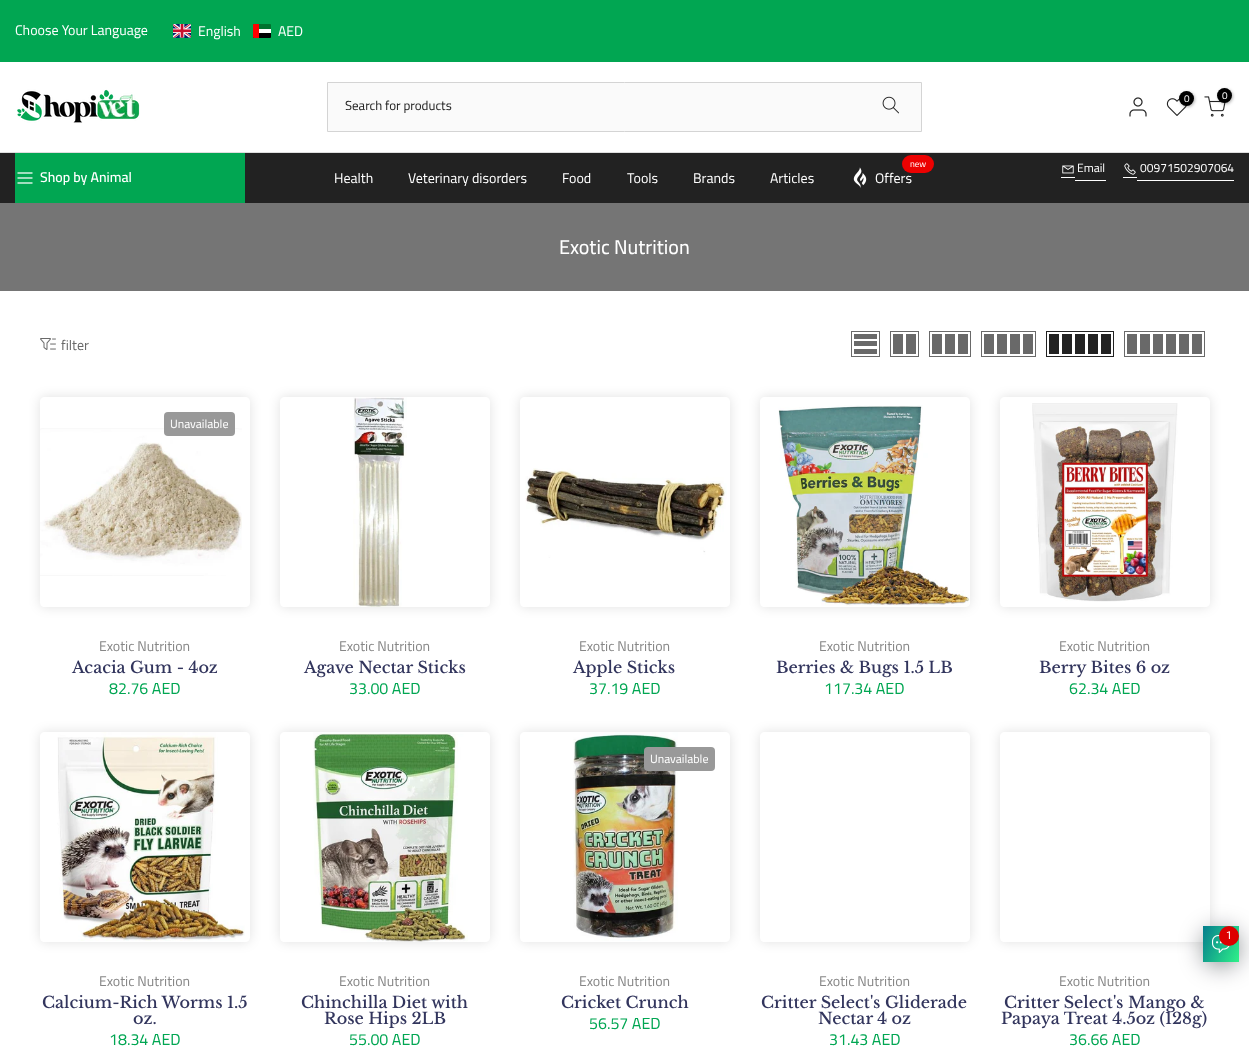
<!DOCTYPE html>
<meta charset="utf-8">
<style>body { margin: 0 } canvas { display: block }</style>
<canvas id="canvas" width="1249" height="1062"></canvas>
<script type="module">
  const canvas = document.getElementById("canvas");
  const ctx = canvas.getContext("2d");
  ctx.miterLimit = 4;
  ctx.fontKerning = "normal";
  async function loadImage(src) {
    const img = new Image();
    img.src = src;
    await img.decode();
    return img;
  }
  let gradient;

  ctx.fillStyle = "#ffffff";
  ctx.fillRect(0, 0, 1249, 1062);
  ctx.fillStyle = "#01a652";
  ctx.fillRect(0, 0, 1249, 62);
  ctx.font = "14px Cairo";
  ctx.fillStyle = "#ffffff";
  ctx.fillText("Choose Your Language", 15, 35);
  ctx.drawImage(await loadImage("img1.png"), 173, 24, 18, 14);
  ctx.fillText("English", 198, 36);
  ctx.fillStyle = "#00732f";
  ctx.beginPath();
  ctx.roundRect(253, 24, 18, 5, [1, 1, 0, 0]);
  ctx.fill();
  ctx.fillStyle = "#ffffff";
  ctx.fillRect(253, 29, 18, 4);
  ctx.fillStyle = "#000000";
  ctx.beginPath();
  ctx.roundRect(253, 33, 18, 5, [0, 0, 1, 1]);
  ctx.fill();
  ctx.fillStyle = "#ff0000";
  ctx.beginPath();
  ctx.roundRect(253, 24, 6, 14, [1, 0, 0, 1]);
  ctx.fill();
  ctx.fillStyle = "#ffffff";
  ctx.fillText("AED", 278, 36);
  ctx.fillStyle = "#dedede";
  ctx.fillRect(0, 152, 1249, 1);
  ctx.drawImage(await loadImage("img2.png"), 17, 89, 123, 34);
  ctx.drawImage(await loadImage("img3.png"), 1129, 97, 18, 20);
  ctx.drawImage(await loadImage("img4.png"), 1166, 98, 21, 18);
  ctx.fillStyle = "rgba(0, 0, 0, 0.3)";
  ctx.filter = "blur(1.5px)";
  ctx.beginPath();
  ctx.roundRect(1180, 92, 15, 15, 7.5);
  ctx.fill();
  ctx.filter = "none";
  ctx.fillStyle = "#000000";
  ctx.beginPath();
  ctx.arc(1186.5, 98.5, 7.5, 0, Math.PI * 2);
  ctx.fill();
  ctx.font = "10px Cairo";
  ctx.fillStyle = "#ffffff";
  ctx.fillText("0", 1184, 102);
  ctx.drawImage(await loadImage("img5.png"), 1204, 96, 22, 21);
  ctx.fillStyle = "rgba(0, 0, 0, 0.3)";
  ctx.filter = "blur(1.5px)";
  ctx.beginPath();
  ctx.roundRect(1218, 89, 15, 15, 7.5);
  ctx.fill();
  ctx.filter = "none";
  ctx.fillStyle = "#000000";
  ctx.beginPath();
  ctx.arc(1224.5, 95.5, 7.5, 0, Math.PI * 2);
  ctx.fill();
  ctx.fillStyle = "#ffffff";
  ctx.fillText("0", 1222, 99);
  ctx.fillStyle = "#fafafa";
  ctx.beginPath();
  ctx.rect(327.5, 82.5, 594, 49);
  ctx.fill();
  ctx.strokeStyle = "#d4d4d4";
  ctx.stroke();
  ctx.font = "13px Cairo";
  ctx.fillStyle = "#222222";
  ctx.fillText("Search for products", 345, 110);
  ctx.drawImage(await loadImage("img6.png"), 882, 96, 17, 18);
  ctx.fillRect(0, 153, 1249, 50);
  ctx.font = "14px Cairo";
  ctx.fillStyle = "#ffffff";
  ctx.fillText("Health", 334, 183);
  ctx.fillText("Veterinary disorders", 408, 183);
  ctx.fillText("Food", 562, 183);
  ctx.fillText("Tools", 627, 183);
  ctx.fillText("Brands", 693, 183);
  ctx.fillText("Articles", 770, 183);
  ctx.fillText("Offers", 875, 183);
  ctx.fillStyle = "#ec0101";
  ctx.beginPath();
  ctx.roundRect(902, 155, 32, 18, 9);
  ctx.fill();
  ctx.font = "9px Cairo";
  ctx.fillStyle = "#ffffff";
  ctx.fillText("new", 910, 167);
  ctx.drawImage(await loadImage("img7.png"), 853, 167, 14, 21);
  ctx.fillRect(1061, 177, 14, 1);
  ctx.fillRect(1075, 180, 31, 1);
  ctx.drawImage(await loadImage("img8.png"), 1062, 165, 12, 9);
  ctx.font = "12px Cairo";
  ctx.fillText("Email", 1077, 172);
  ctx.fillRect(1123, 177, 14, 1);
  ctx.fillRect(1137, 180, 97, 1);
  ctx.drawImage(await loadImage("img9.png"), 1124, 163, 12, 12);
  ctx.fillText("00971502907064", 1140, 172);
  ctx.fillStyle = "#01a652";
  ctx.fillRect(15, 153, 230, 50);
  ctx.drawImage(await loadImage("img10.png"), 17, 172, 16, 12);
  ctx.font = "600 14px Cairo";
  ctx.fillStyle = "#ffffff";
  ctx.fillText("Shop by Animal", 40, 182);
  ctx.fillStyle = "#757575";
  ctx.fillRect(0, 203, 1249, 88);
  ctx.font = "500 20px Cairo";
  ctx.fillStyle = "#ffffff";
  ctx.fillText("Exotic Nutrition", 559, 254);
  ctx.drawImage(await loadImage("img11.png"), 40, 338, 16, 12);
  ctx.font = "14px Cairo";
  ctx.fillStyle = "#696969";
  ctx.fillText("filter", 61, 350);
  ctx.strokeStyle = "#696969";
  ctx.strokeRect(851.5, 331.5, 28, 25);
  ctx.fillRect(854, 349, 23, 5);
  ctx.fillRect(854, 341, 23, 5);
  ctx.fillRect(854, 334, 23, 5);
  ctx.strokeRect(890.5, 331.5, 28, 25);
  ctx.fillRect(906, 334, 10, 20);
  ctx.fillRect(893, 334, 10, 20);
  ctx.strokeRect(929.5, 331.5, 41, 25);
  ctx.fillRect(958, 334, 10, 20);
  ctx.fillRect(945, 334, 10, 20);
  ctx.fillRect(932, 334, 10, 20);
  ctx.strokeRect(981.5, 331.5, 54, 25);
  ctx.fillRect(1023, 334, 10, 20);
  ctx.fillRect(1010, 334, 10, 20);
  ctx.fillRect(997, 334, 10, 20);
  ctx.fillRect(984, 334, 10, 20);
  ctx.strokeStyle = "#222222";
  ctx.strokeRect(1046.5, 331.5, 67, 25);
  ctx.fillStyle = "#222222";
  ctx.fillRect(1101, 334, 10, 20);
  ctx.fillRect(1088, 334, 10, 20);
  ctx.fillRect(1075, 334, 10, 20);
  ctx.fillRect(1062, 334, 10, 20);
  ctx.fillRect(1049, 334, 10, 20);
  ctx.strokeStyle = "#696969";
  ctx.strokeRect(1124.5, 331.5, 80, 25);
  ctx.fillStyle = "#696969";
  ctx.fillRect(1192, 334, 10, 20);
  ctx.fillRect(1179, 334, 10, 20);
  ctx.fillRect(1166, 334, 10, 20);
  ctx.fillRect(1153, 334, 10, 20);
  ctx.fillRect(1140, 334, 10, 20);
  ctx.fillRect(1127, 334, 10, 20);
  ctx.save();
  ctx.beginPath();
  ctx.moveTo(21, 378);
  ctx.lineTo(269, 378);
  ctx.lineTo(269, 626);
  ctx.lineTo(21, 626);
  ctx.closePath();
  ctx.moveTo(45, 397);
  ctx.lineTo(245, 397);
  ctx.bezierCurveTo(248, 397, 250, 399, 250, 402);
  ctx.lineTo(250, 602);
  ctx.bezierCurveTo(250, 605, 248, 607, 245, 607);
  ctx.lineTo(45, 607);
  ctx.bezierCurveTo(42, 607, 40, 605, 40, 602);
  ctx.lineTo(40, 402);
  ctx.bezierCurveTo(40, 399, 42, 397, 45, 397);
  ctx.closePath();
  ctx.clip("evenodd");
  ctx.fillStyle = "rgba(0, 0, 0, 0.12)";
  ctx.filter = "blur(6px)";
  ctx.beginPath();
  ctx.roundRect(40, 397, 210, 210, 5);
  ctx.fill();
  ctx.filter = "none";
  ctx.restore();
  ctx.drawImage(await loadImage("img12.png"), 40, 428, 202, 148);
  ctx.fillStyle = "#999999";
  ctx.beginPath();
  ctx.roundRect(164, 412, 71, 24, 4);
  ctx.fill();
  ctx.font = "12px Cairo";
  ctx.fillStyle = "#ffffff";
  ctx.fillText("Unavailable", 170, 428);
  ctx.font = "14px Cairo";
  ctx.fillStyle = "#878787";
  ctx.fillText("Exotic Nutrition", 99, 651);
  ctx.font = "500 16px Libre Baskerville";
  ctx.fillStyle = "#32355d";
  ctx.fillText("Acacia Gum - 4oz", 72, 673);
  ctx.font = "16px Cairo";
  ctx.fillStyle = "#01a652";
  ctx.fillText("82.76 AED", 109, 694);
  ctx.save();
  ctx.beginPath();
  ctx.moveTo(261, 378);
  ctx.lineTo(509, 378);
  ctx.lineTo(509, 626);
  ctx.lineTo(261, 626);
  ctx.closePath();
  ctx.moveTo(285, 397);
  ctx.lineTo(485, 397);
  ctx.bezierCurveTo(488, 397, 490, 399, 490, 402);
  ctx.lineTo(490, 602);
  ctx.bezierCurveTo(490, 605, 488, 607, 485, 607);
  ctx.lineTo(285, 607);
  ctx.bezierCurveTo(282, 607, 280, 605, 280, 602);
  ctx.lineTo(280, 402);
  ctx.bezierCurveTo(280, 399, 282, 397, 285, 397);
  ctx.closePath();
  ctx.clip("evenodd");
  ctx.fillStyle = "rgba(0, 0, 0, 0.12)";
  ctx.filter = "blur(6px)";
  ctx.beginPath();
  ctx.roundRect(280, 397, 210, 210, 5);
  ctx.fill();
  ctx.filter = "none";
  ctx.restore();
  ctx.drawImage(await loadImage("img13.png"), 353, 397, 54, 210);
  ctx.font = "14px Cairo";
  ctx.fillStyle = "#878787";
  ctx.fillText("Exotic Nutrition", 339, 651);
  ctx.font = "500 16px Libre Baskerville";
  ctx.fillStyle = "#32355d";
  ctx.fillText("Agave Nectar Sticks", 304, 673);
  ctx.font = "16px Cairo";
  ctx.fillStyle = "#01a652";
  ctx.fillText("33.00 AED", 349, 694);
  ctx.save();
  ctx.beginPath();
  ctx.moveTo(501, 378);
  ctx.lineTo(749, 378);
  ctx.lineTo(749, 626);
  ctx.lineTo(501, 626);
  ctx.closePath();
  ctx.moveTo(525, 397);
  ctx.lineTo(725, 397);
  ctx.bezierCurveTo(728, 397, 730, 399, 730, 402);
  ctx.lineTo(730, 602);
  ctx.bezierCurveTo(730, 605, 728, 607, 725, 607);
  ctx.lineTo(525, 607);
  ctx.bezierCurveTo(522, 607, 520, 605, 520, 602);
  ctx.lineTo(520, 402);
  ctx.bezierCurveTo(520, 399, 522, 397, 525, 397);
  ctx.closePath();
  ctx.clip("evenodd");
  ctx.fillStyle = "rgba(0, 0, 0, 0.12)";
  ctx.filter = "blur(6px)";
  ctx.beginPath();
  ctx.roundRect(520, 397, 210, 210, 5);
  ctx.fill();
  ctx.filter = "none";
  ctx.restore();
  ctx.drawImage(await loadImage("img14.png"), 525, 468, 202, 90);
  ctx.font = "14px Cairo";
  ctx.fillStyle = "#878787";
  ctx.fillText("Exotic Nutrition", 579, 651);
  ctx.font = "500 16px Libre Baskerville";
  ctx.fillStyle = "#32355d";
  ctx.fillText("Apple Sticks", 573, 673);
  ctx.font = "16px Cairo";
  ctx.fillStyle = "#01a652";
  ctx.fillText("37.19 AED", 589, 694);
  ctx.save();
  ctx.beginPath();
  ctx.moveTo(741, 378);
  ctx.lineTo(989, 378);
  ctx.lineTo(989, 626);
  ctx.lineTo(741, 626);
  ctx.closePath();
  ctx.moveTo(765, 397);
  ctx.lineTo(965, 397);
  ctx.bezierCurveTo(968, 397, 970, 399, 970, 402);
  ctx.lineTo(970, 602);
  ctx.bezierCurveTo(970, 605, 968, 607, 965, 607);
  ctx.lineTo(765, 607);
  ctx.bezierCurveTo(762, 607, 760, 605, 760, 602);
  ctx.lineTo(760, 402);
  ctx.bezierCurveTo(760, 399, 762, 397, 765, 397);
  ctx.closePath();
  ctx.clip("evenodd");
  ctx.fillStyle = "rgba(0, 0, 0, 0.12)";
  ctx.filter = "blur(6px)";
  ctx.beginPath();
  ctx.roundRect(760, 397, 210, 210, 5);
  ctx.fill();
  ctx.filter = "none";
  ctx.restore();
  ctx.drawImage(await loadImage("img15.png"), 778, 405, 192, 201);
  ctx.font = "14px Cairo";
  ctx.fillStyle = "#878787";
  ctx.fillText("Exotic Nutrition", 819, 651);
  ctx.font = "500 16px Libre Baskerville";
  ctx.fillStyle = "#32355d";
  ctx.fillText("Berries & Bugs 1.5 LB", 776, 673);
  ctx.font = "16px Cairo";
  ctx.fillStyle = "#01a652";
  ctx.fillText("117.34 AED", 824, 694);
  ctx.save();
  ctx.beginPath();
  ctx.moveTo(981, 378);
  ctx.lineTo(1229, 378);
  ctx.lineTo(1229, 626);
  ctx.lineTo(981, 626);
  ctx.closePath();
  ctx.moveTo(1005, 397);
  ctx.lineTo(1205, 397);
  ctx.bezierCurveTo(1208, 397, 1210, 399, 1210, 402);
  ctx.lineTo(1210, 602);
  ctx.bezierCurveTo(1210, 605, 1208, 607, 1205, 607);
  ctx.lineTo(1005, 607);
  ctx.bezierCurveTo(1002, 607, 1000, 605, 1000, 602);
  ctx.lineTo(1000, 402);
  ctx.bezierCurveTo(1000, 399, 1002, 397, 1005, 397);
  ctx.closePath();
  ctx.clip("evenodd");
  ctx.fillStyle = "rgba(0, 0, 0, 0.12)";
  ctx.filter = "blur(6px)";
  ctx.beginPath();
  ctx.roundRect(1000, 397, 210, 210, 5);
  ctx.fill();
  ctx.filter = "none";
  ctx.restore();
  ctx.drawImage(await loadImage("img16.png"), 1032, 403, 146, 199);
  ctx.font = "14px Cairo";
  ctx.fillStyle = "#878787";
  ctx.fillText("Exotic Nutrition", 1059, 651);
  ctx.font = "500 16px Libre Baskerville";
  ctx.fillStyle = "#32355d";
  ctx.fillText("Berry Bites 6 oz", 1039, 673);
  ctx.font = "16px Cairo";
  ctx.fillStyle = "#01a652";
  ctx.fillText("62.34 AED", 1069, 694);
  ctx.save();
  ctx.beginPath();
  ctx.moveTo(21, 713);
  ctx.lineTo(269, 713);
  ctx.lineTo(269, 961);
  ctx.lineTo(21, 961);
  ctx.closePath();
  ctx.moveTo(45, 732);
  ctx.lineTo(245, 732);
  ctx.bezierCurveTo(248, 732, 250, 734, 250, 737);
  ctx.lineTo(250, 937);
  ctx.bezierCurveTo(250, 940, 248, 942, 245, 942);
  ctx.lineTo(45, 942);
  ctx.bezierCurveTo(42, 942, 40, 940, 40, 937);
  ctx.lineTo(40, 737);
  ctx.bezierCurveTo(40, 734, 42, 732, 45, 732);
  ctx.closePath();
  ctx.clip("evenodd");
  ctx.fillStyle = "rgba(0, 0, 0, 0.12)";
  ctx.filter = "blur(6px)";
  ctx.beginPath();
  ctx.roundRect(40, 732, 210, 210, 5);
  ctx.fill();
  ctx.filter = "none";
  ctx.restore();
  ctx.drawImage(await loadImage("img17.png"), 57, 732, 188, 209);
  ctx.font = "14px Cairo";
  ctx.fillStyle = "#878787";
  ctx.fillText("Exotic Nutrition", 99, 986);
  ctx.font = "500 16px Libre Baskerville";
  ctx.fillStyle = "#32355d";
  ctx.fillText("Calcium-Rich Worms 1.5", 42, 1008);
  ctx.fillText("oz.", 133, 1024);
  ctx.font = "16px Cairo";
  ctx.fillStyle = "#01a652";
  ctx.fillText("18.34 AED", 109, 1045);
  ctx.save();
  ctx.beginPath();
  ctx.moveTo(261, 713);
  ctx.lineTo(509, 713);
  ctx.lineTo(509, 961);
  ctx.lineTo(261, 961);
  ctx.closePath();
  ctx.moveTo(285, 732);
  ctx.lineTo(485, 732);
  ctx.bezierCurveTo(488, 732, 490, 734, 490, 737);
  ctx.lineTo(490, 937);
  ctx.bezierCurveTo(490, 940, 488, 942, 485, 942);
  ctx.lineTo(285, 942);
  ctx.bezierCurveTo(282, 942, 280, 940, 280, 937);
  ctx.lineTo(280, 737);
  ctx.bezierCurveTo(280, 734, 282, 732, 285, 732);
  ctx.closePath();
  ctx.clip("evenodd");
  ctx.fillStyle = "rgba(0, 0, 0, 0.12)";
  ctx.filter = "blur(6px)";
  ctx.beginPath();
  ctx.roundRect(280, 732, 210, 210, 5);
  ctx.fill();
  ctx.filter = "none";
  ctx.restore();
  ctx.drawImage(await loadImage("img18.png"), 313, 732, 155, 210);
  ctx.font = "14px Cairo";
  ctx.fillStyle = "#878787";
  ctx.fillText("Exotic Nutrition", 339, 986);
  ctx.font = "500 16px Libre Baskerville";
  ctx.fillStyle = "#32355d";
  ctx.fillText("Chinchilla Diet with", 301, 1008);
  ctx.fillText("Rose Hips 2LB", 324, 1024);
  ctx.font = "16px Cairo";
  ctx.fillStyle = "#01a652";
  ctx.fillText("55.00 AED", 349, 1045);
  ctx.save();
  ctx.beginPath();
  ctx.moveTo(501, 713);
  ctx.lineTo(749, 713);
  ctx.lineTo(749, 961);
  ctx.lineTo(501, 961);
  ctx.closePath();
  ctx.moveTo(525, 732);
  ctx.lineTo(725, 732);
  ctx.bezierCurveTo(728, 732, 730, 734, 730, 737);
  ctx.lineTo(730, 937);
  ctx.bezierCurveTo(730, 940, 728, 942, 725, 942);
  ctx.lineTo(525, 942);
  ctx.bezierCurveTo(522, 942, 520, 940, 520, 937);
  ctx.lineTo(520, 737);
  ctx.bezierCurveTo(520, 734, 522, 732, 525, 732);
  ctx.closePath();
  ctx.clip("evenodd");
  ctx.fillStyle = "rgba(0, 0, 0, 0.12)";
  ctx.filter = "blur(6px)";
  ctx.beginPath();
  ctx.roundRect(520, 732, 210, 210, 5);
  ctx.fill();
  ctx.filter = "none";
  ctx.restore();
  ctx.drawImage(await loadImage("img19.png"), 573, 732, 105, 209);
  ctx.fillStyle = "#999999";
  ctx.beginPath();
  ctx.roundRect(644, 747, 71, 24, 4);
  ctx.fill();
  ctx.font = "12px Cairo";
  ctx.fillStyle = "#ffffff";
  ctx.fillText("Unavailable", 650, 763);
  ctx.font = "14px Cairo";
  ctx.fillStyle = "#878787";
  ctx.fillText("Exotic Nutrition", 579, 986);
  ctx.font = "500 16px Libre Baskerville";
  ctx.fillStyle = "#32355d";
  ctx.fillText("Cricket Crunch", 561, 1008);
  ctx.font = "16px Cairo";
  ctx.fillStyle = "#01a652";
  ctx.fillText("56.57 AED", 589, 1029);
  ctx.save();
  ctx.beginPath();
  ctx.moveTo(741, 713);
  ctx.lineTo(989, 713);
  ctx.lineTo(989, 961);
  ctx.lineTo(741, 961);
  ctx.closePath();
  ctx.moveTo(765, 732);
  ctx.lineTo(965, 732);
  ctx.bezierCurveTo(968, 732, 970, 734, 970, 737);
  ctx.lineTo(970, 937);
  ctx.bezierCurveTo(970, 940, 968, 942, 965, 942);
  ctx.lineTo(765, 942);
  ctx.bezierCurveTo(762, 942, 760, 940, 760, 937);
  ctx.lineTo(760, 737);
  ctx.bezierCurveTo(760, 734, 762, 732, 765, 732);
  ctx.closePath();
  ctx.clip("evenodd");
  ctx.fillStyle = "rgba(0, 0, 0, 0.12)";
  ctx.filter = "blur(6px)";
  ctx.beginPath();
  ctx.roundRect(760, 732, 210, 210, 5);
  ctx.fill();
  ctx.filter = "none";
  ctx.restore();
  ctx.font = "14px Cairo";
  ctx.fillStyle = "#878787";
  ctx.fillText("Exotic Nutrition", 819, 986);
  ctx.font = "500 16px Libre Baskerville";
  ctx.fillStyle = "#32355d";
  ctx.fillText("Critter Select's Gliderade", 761, 1008);
  ctx.fillText("Nectar 4 oz", 818, 1024);
  ctx.font = "16px Cairo";
  ctx.fillStyle = "#01a652";
  ctx.fillText("31.43 AED", 829, 1045);
  ctx.save();
  ctx.beginPath();
  ctx.moveTo(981, 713);
  ctx.lineTo(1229, 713);
  ctx.lineTo(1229, 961);
  ctx.lineTo(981, 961);
  ctx.closePath();
  ctx.moveTo(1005, 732);
  ctx.lineTo(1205, 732);
  ctx.bezierCurveTo(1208, 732, 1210, 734, 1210, 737);
  ctx.lineTo(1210, 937);
  ctx.bezierCurveTo(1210, 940, 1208, 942, 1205, 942);
  ctx.lineTo(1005, 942);
  ctx.bezierCurveTo(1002, 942, 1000, 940, 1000, 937);
  ctx.lineTo(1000, 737);
  ctx.bezierCurveTo(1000, 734, 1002, 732, 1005, 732);
  ctx.closePath();
  ctx.clip("evenodd");
  ctx.fillStyle = "rgba(0, 0, 0, 0.12)";
  ctx.filter = "blur(6px)";
  ctx.beginPath();
  ctx.roundRect(1000, 732, 210, 210, 5);
  ctx.fill();
  ctx.filter = "none";
  ctx.restore();
  ctx.font = "14px Cairo";
  ctx.fillStyle = "#878787";
  ctx.fillText("Exotic Nutrition", 1059, 986);
  ctx.font = "500 16px Libre Baskerville";
  ctx.fillStyle = "#32355d";
  ctx.fillText("Critter Select's Mango &", 1004, 1008);
  ctx.fillText("Papaya Treat 4.5oz (128g)", 1001, 1024);
  ctx.font = "16px Cairo";
  ctx.fillStyle = "#01a652";
  ctx.fillText("36.66 AED", 1069, 1045);
  ctx.fillStyle = "rgba(2, 6, 16, 0.5)";
  ctx.filter = "blur(12px)";
  ctx.beginPath();
  ctx.roundRect(1203, 930, 36, 36, 18);
  ctx.fill();
  ctx.filter = "none";
  gradient = ctx.createLinearGradient(1199, 934, 1243, 954);
  gradient.addColorStop(0, "#047c8d");
  gradient.addColorStop(1, "#2ff289");
  ctx.fillStyle = gradient;
  ctx.fillRect(1203, 926, 36, 36);
  ctx.drawImage(await loadImage("img20.png"), 1212, 935, 18, 18);
  ctx.fillStyle = "#dd0000";
  ctx.beginPath();
  ctx.arc(1229, 936, 10, 0, Math.PI * 2);
  ctx.fill();
  ctx.font = "11px Roboto";
  ctx.fillStyle = "#ffffff";
  ctx.fillText("1", 1226, 939);
</script>
